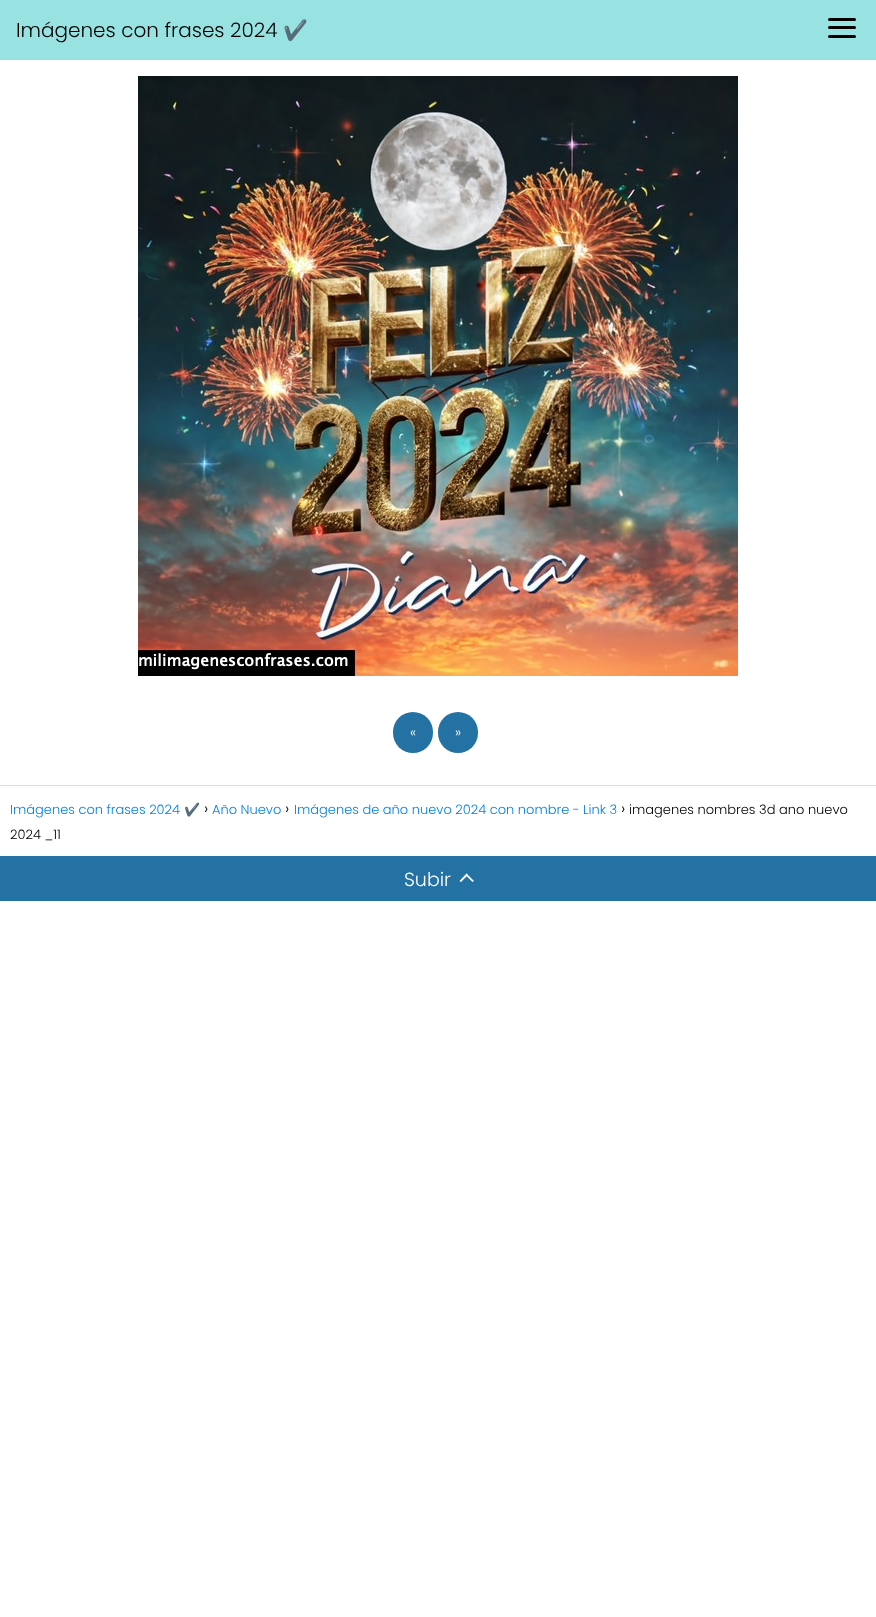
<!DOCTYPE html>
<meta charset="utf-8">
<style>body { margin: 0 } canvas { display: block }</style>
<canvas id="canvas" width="876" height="1617"></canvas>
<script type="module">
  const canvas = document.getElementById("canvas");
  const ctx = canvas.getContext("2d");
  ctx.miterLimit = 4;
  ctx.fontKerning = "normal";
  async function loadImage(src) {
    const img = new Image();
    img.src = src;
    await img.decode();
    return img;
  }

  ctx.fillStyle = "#ffffff";
  ctx.fillRect(0, 0, 876, 1617);
  ctx.fillStyle = "#98e2e2";
  ctx.fillRect(0, 0, 876, 60);
  ctx.font = "300 20px Poppins";
  ctx.fillStyle = "#000000";
  ctx.fillText("Imágenes con frases 2024", 16, 37);
  ctx.font = "20px Noto Color Emoji";
  ctx.fillText("✔️", 283, 37);
  ctx.beginPath();
  ctx.roundRect(828, 18, 28, 3, 1.5);
  ctx.fill();
  ctx.beginPath();
  ctx.roundRect(828, 26, 28, 3, 1.5);
  ctx.fill();
  ctx.beginPath();
  ctx.roundRect(828, 35, 28, 3, 1.5);
  ctx.fill();
  ctx.drawImage(await loadImage("img1.png"), 138, 76, 600, 600);
  ctx.fillStyle = "#2471a3";
  ctx.beginPath();
  ctx.roundRect(393, 712, 40, 41, 20);
  ctx.fill();
  ctx.font = "300 14px Poppins";
  ctx.fillStyle = "#ffffff";
  ctx.fillText("«", 410, 737);
  ctx.fillStyle = "#2471a3";
  ctx.beginPath();
  ctx.roundRect(438, 712, 40, 41, 20);
  ctx.fill();
  ctx.fillStyle = "#ffffff";
  ctx.fillText("»", 455, 737);
  ctx.fillStyle = "#dddddd";
  ctx.fillRect(0, 785, 876, 1);
  ctx.font = "300 13px Poppins";
  ctx.fillStyle = "#0183e4";
  ctx.fillText("Imágenes con frases 2024", 10, 814);
  ctx.font = "13px Noto Color Emoji";
  ctx.fillText("✔️", 184, 814);
  ctx.font = "300 16px Poppins";
  ctx.fillStyle = "#000000";
  ctx.fillText("›", 204, 814);
  ctx.font = "300 13px Poppins";
  ctx.fillStyle = "#0183e4";
  ctx.fillText("Año Nuevo", 212, 814);
  ctx.font = "300 16px Poppins";
  ctx.fillStyle = "#000000";
  ctx.fillText("›", 285, 814);
  ctx.font = "300 13px Poppins";
  ctx.fillStyle = "#0183e4";
  ctx.fillText("Imágenes de año nuevo 2024 con nombre - Link 3", 294, 814);
  ctx.font = "300 16px Poppins";
  ctx.fillStyle = "#000000";
  ctx.fillText("›", 621, 814);
  ctx.font = "300 13px Poppins";
  ctx.fillText("imagenes nombres 3d ano nuevo", 629, 814);
  ctx.fillText("2024 _11", 10, 839);
  ctx.fillStyle = "#2471a3";
  ctx.fillRect(0, 856, 876, 45);
  ctx.font = "300 19px Poppins";
  ctx.fillStyle = "#ffffff";
  ctx.fillText("Subir", 404, 886);
  ctx.beginPath();
  ctx.moveTo(461, 882);
  ctx.lineTo(459.5, 881);
  ctx.lineTo(466.5, 873.5);
  ctx.lineTo(468, 875);
  ctx.closePath();
  ctx.fill();
  ctx.beginPath();
  ctx.moveTo(472.5, 882);
  ctx.lineTo(465.5, 875);
  ctx.lineTo(466.5, 873.5);
  ctx.lineTo(474, 881);
  ctx.closePath();
  ctx.fill();
</script>
